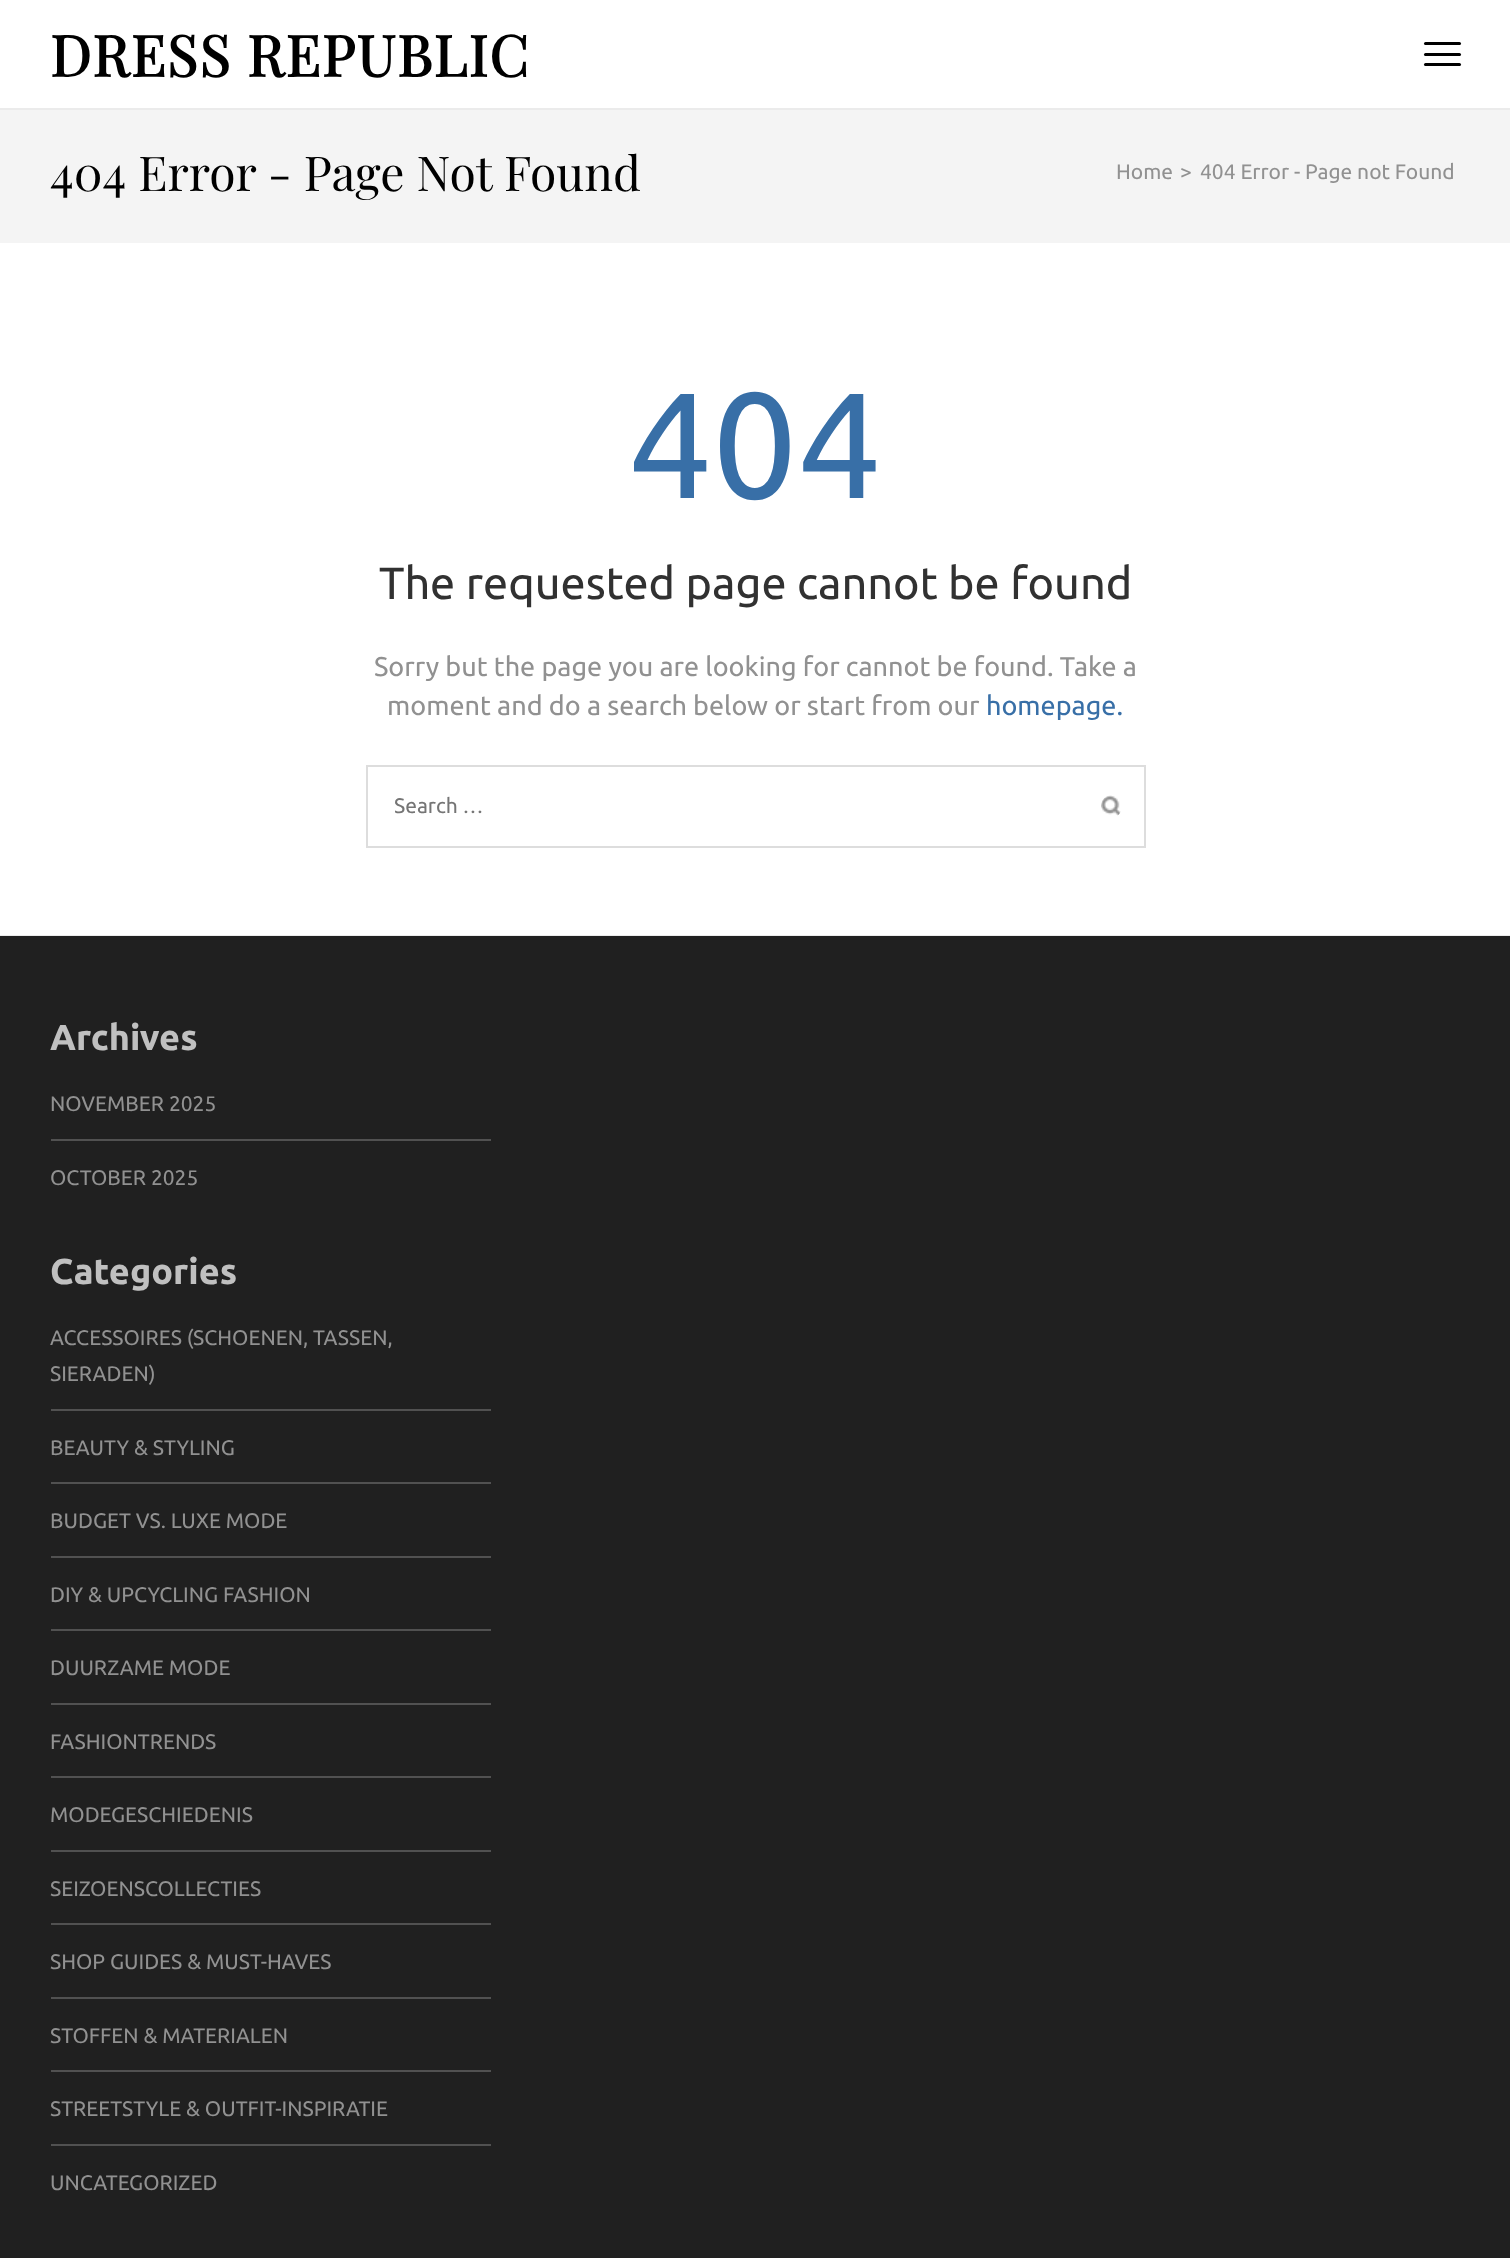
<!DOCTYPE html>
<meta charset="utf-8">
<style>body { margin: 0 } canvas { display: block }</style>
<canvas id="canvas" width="1510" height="2258"></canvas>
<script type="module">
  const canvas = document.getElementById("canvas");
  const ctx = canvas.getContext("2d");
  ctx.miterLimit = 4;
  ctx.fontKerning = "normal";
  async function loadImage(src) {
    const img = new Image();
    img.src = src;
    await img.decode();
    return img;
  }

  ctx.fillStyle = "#ffffff";
  ctx.fillRect(0, 0, 1510, 2258);
  ctx.letterSpacing = "1.5px";
  ctx.font = "bold 57px Playfair Display";
  ctx.fillStyle = "#000000";
  ctx.fillText("DRESS REPUBLIC", 50, 77);
  ctx.beginPath();
  ctx.roundRect(1424, 42, 37, 3, 1.5);
  ctx.fill();
  ctx.beginPath();
  ctx.roundRect(1424, 53, 37, 3, 1.5);
  ctx.fill();
  ctx.beginPath();
  ctx.roundRect(1424, 63, 37, 3, 1.5);
  ctx.fill();
  ctx.fillStyle = "#f4f4f4";
  ctx.fillRect(0, 110, 1510, 133);
  ctx.fillStyle = "#ebebeb";
  ctx.fillRect(0, 108, 1510, 2);
  ctx.letterSpacing = "0px";
  ctx.font = "48px Playfair Display";
  ctx.fillStyle = "#000000";
  ctx.fillText("404 Error - Page Not Found", 50, 191);
  ctx.font = "21px Ubuntu";
  ctx.fillStyle = "#919191";
  ctx.fillText("Home", 1116, 179);
  ctx.fillText(">", 1180, 179);
  ctx.fillText("404 Error - Page not Found", 1200, 179);
  ctx.fillStyle = "#ebebeb";
  ctx.fillRect(0, 935, 1510, 1);
  ctx.font = "150px Ubuntu";
  ctx.fillStyle = "#386fa7";
  ctx.fillText("404", 628, 498);
  ctx.font = "45px Ubuntu";
  ctx.fillStyle = "#313131";
  ctx.fillText("The requested page cannot be found", 379, 599);
  ctx.font = "27px Ubuntu";
  ctx.fillStyle = "#919191";
  ctx.fillText("Sorry but the page you are looking for cannot be found. Take a", 374, 676);
  ctx.fillText("moment and do a search below or start from our", 387, 715);
  ctx.fillStyle = "#386fa7";
  ctx.fillText("homepage.", 986, 715);
  ctx.strokeStyle = "#dddddd";
  ctx.lineWidth = 2;
  ctx.strokeRect(367, 766, 778, 81);
  ctx.save();
  ctx.beginPath();
  ctx.rect(395, 794, 538, 24);
  ctx.clip();
  ctx.font = "21px Ubuntu";
  ctx.fillStyle = "#757575";
  ctx.fillText("Search …", 394, 813);
  ctx.restore();
  ctx.drawImage(await loadImage("img1.png"), 1101, 795, 20, 21);
  ctx.fillStyle = "#202020";
  ctx.fillRect(0, 936, 1510, 1322);
  ctx.font = "bold 36px Ubuntu";
  ctx.fillStyle = "#c0c0c0";
  ctx.fillText("Archives", 50, 1050);
  ctx.fillStyle = "#515151";
  ctx.fillRect(51, 1139, 440, 2);
  ctx.font = "21px Ubuntu";
  ctx.fillStyle = "#919191";
  ctx.fillText("NOVEMBER 2025", 50, 1111);
  ctx.fillText("OCTOBER 2025", 50, 1185);
  ctx.font = "bold 36px Ubuntu";
  ctx.fillStyle = "#c0c0c0";
  ctx.fillText("Categories", 50, 1284);
  ctx.fillStyle = "#515151";
  ctx.fillRect(51, 1409, 440, 2);
  ctx.font = "21px Ubuntu";
  ctx.fillStyle = "#919191";
  ctx.fillText("ACCESSOIRES (SCHOENEN, TASSEN,", 50, 1345);
  ctx.fillText("SIERADEN)", 50, 1381);
  ctx.fillStyle = "#515151";
  ctx.fillRect(51, 1482, 440, 2);
  ctx.fillStyle = "#919191";
  ctx.fillText("BEAUTY & STYLING", 50, 1455);
  ctx.fillStyle = "#515151";
  ctx.fillRect(51, 1556, 440, 2);
  ctx.fillStyle = "#919191";
  ctx.fillText("BUDGET VS. LUXE MODE", 50, 1528);
  ctx.fillStyle = "#515151";
  ctx.fillRect(51, 1629, 440, 2);
  ctx.fillStyle = "#919191";
  ctx.fillText("DIY & UPCYCLING FASHION", 50, 1602);
  ctx.fillStyle = "#515151";
  ctx.fillRect(51, 1703, 440, 2);
  ctx.fillStyle = "#919191";
  ctx.fillText("DUURZAME MODE", 50, 1675);
  ctx.fillStyle = "#515151";
  ctx.fillRect(51, 1776, 440, 2);
  ctx.fillStyle = "#919191";
  ctx.fillText("FASHIONTRENDS", 50, 1749);
  ctx.fillStyle = "#515151";
  ctx.fillRect(51, 1850, 440, 2);
  ctx.fillStyle = "#919191";
  ctx.fillText("MODEGESCHIEDENIS", 50, 1822);
  ctx.fillStyle = "#515151";
  ctx.fillRect(51, 1923, 440, 2);
  ctx.fillStyle = "#919191";
  ctx.fillText("SEIZOENSCOLLECTIES", 50, 1896);
  ctx.fillStyle = "#515151";
  ctx.fillRect(51, 1997, 440, 2);
  ctx.fillStyle = "#919191";
  ctx.fillText("SHOP GUIDES & MUST-HAVES", 50, 1969);
  ctx.fillStyle = "#515151";
  ctx.fillRect(51, 2070, 440, 2);
  ctx.fillStyle = "#919191";
  ctx.fillText("STOFFEN & MATERIALEN", 50, 2043);
  ctx.fillStyle = "#515151";
  ctx.fillRect(51, 2144, 440, 2);
  ctx.fillStyle = "#919191";
  ctx.fillText("STREETSTYLE & OUTFIT-INSPIRATIE", 50, 2116);
  ctx.fillText("UNCATEGORIZED", 50, 2190);
</script>
